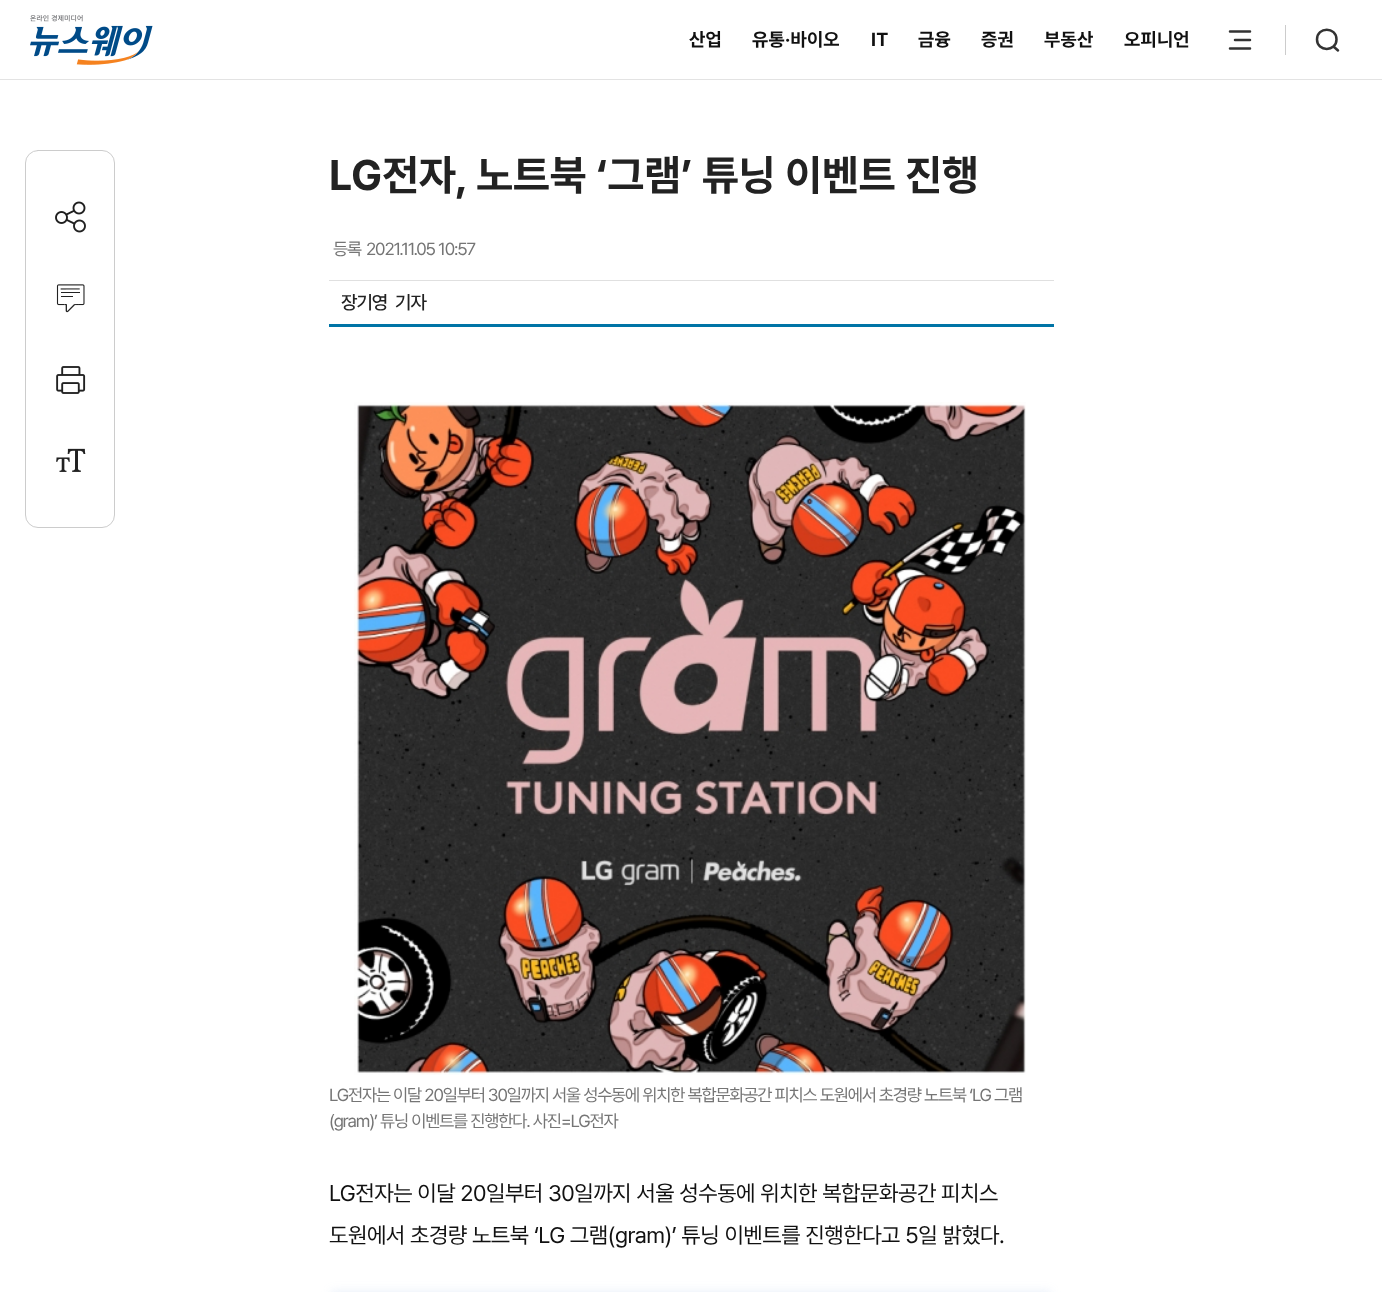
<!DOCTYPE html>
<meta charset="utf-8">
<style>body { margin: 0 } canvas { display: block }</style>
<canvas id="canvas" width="1382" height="1292"></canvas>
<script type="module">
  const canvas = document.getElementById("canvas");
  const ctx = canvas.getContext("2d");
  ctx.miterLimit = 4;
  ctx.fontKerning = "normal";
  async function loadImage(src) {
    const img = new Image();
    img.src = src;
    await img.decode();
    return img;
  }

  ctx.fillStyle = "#ffffff";
  ctx.fillRect(0, 0, 1382, 1292);
  ctx.fillStyle = "#e3e3e3";
  ctx.fillRect(0, 79, 1382, 1);
  ctx.drawImage(await loadImage("img1.png"), 30, 15, 123, 50);
  ctx.letterSpacing = "0.25px";
  ctx.font = "bold 18.75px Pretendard";
  ctx.fillStyle = "#111111";
  ctx.fillText("산업", 689, 46);
  ctx.fillText("유통·바이오", 752, 46);
  ctx.fillText("IT", 871, 46);
  ctx.fillText("금융", 918, 46);
  ctx.fillText("증권", 981, 46);
  ctx.fillText("부동산", 1044, 46);
  ctx.fillText("오피니언", 1124, 46);
  ctx.beginPath();
  ctx.moveTo(1230, 31.5);
  ctx.lineTo(1250, 31.5);
  ctx.moveTo(1235, 40);
  ctx.lineTo(1250, 40);
  ctx.moveTo(1230, 48.5);
  ctx.lineTo(1250, 48.5);
  ctx.strokeStyle = "#333333";
  ctx.lineWidth = 2.5;
  ctx.lineCap = "round";
  ctx.stroke();
  ctx.fillStyle = "#cccccc";
  ctx.fillRect(1285, 25, 1, 30);
  ctx.beginPath();
  ctx.moveTo(1333.5, 46.5);
  ctx.lineTo(1338, 50.5);
  ctx.moveTo(1336.5, 39.5);
  ctx.bezierCurveTo(1336.5, 52, 1317, 52, 1317, 39.5);
  ctx.bezierCurveTo(1317, 26.5, 1336.5, 26.5, 1336.5, 39.5);
  ctx.closePath();
  ctx.stroke();
  ctx.letterSpacing = "0px";
  ctx.font = "bold 42.5px Pretendard";
  ctx.fillStyle = "#222222";
  ctx.fillText("LG전자, 노트북 ‘그램’ 튜닝 이벤트 진행", 329, 190);
  ctx.fillStyle = "#e0e0e0";
  ctx.fillRect(329, 280, 725, 1);
  ctx.letterSpacing = "-1.15px";
  ctx.font = "17.5px Pretendard";
  ctx.fillStyle = "#757575";
  ctx.fillText("등록", 333, 255);
  ctx.fillText("2021.11.05 10:57", 366, 255);
  ctx.fillStyle = "#0074a6";
  ctx.fillRect(329, 324, 725, 3);
  ctx.letterSpacing = "-1px";
  ctx.font = "500 19px Pretendard";
  ctx.fillStyle = "#222222";
  ctx.fillText("장기영", 341, 309);
  ctx.fillText("기자", 395, 309);
  ctx.beginPath();
  ctx.roundRect(25.5, 150.5, 89, 377, 12.5);
  ctx.strokeStyle = "#cccccc";
  ctx.lineWidth = 1;
  ctx.stroke();
  ctx.drawImage(await loadImage("img2.png"), 55, 201, 31, 32);
  ctx.drawImage(await loadImage("img3.png"), 56, 284, 29, 29);
  ctx.drawImage(await loadImage("img4.png"), 56, 366, 30, 28);
  ctx.drawImage(await loadImage("img5.png"), 56, 448, 30, 24);
  ctx.drawImage(await loadImage("img6.png"), 354, 402, 672, 673);
  ctx.letterSpacing = "-1.15px";
  ctx.font = "17.5px Pretendard";
  ctx.fillStyle = "#757575";
  ctx.fillText("LG전자는 이달 20일부터 30일까지 서울 성수동에 위치한 복합문화공간 피치스 도원에서 초경량 노트북 ‘LG 그램", 329, 1101);
  ctx.fillText("(gram)’ 튜닝 이벤트를 진행한다. 사진=LG전자", 329, 1127);
  ctx.letterSpacing = "-0.5px";
  ctx.font = "22.5px Pretendard";
  ctx.fillStyle = "#111111";
  ctx.fillText("LG전자는 이달 20일부터 30일까지 서울 성수동에 위치한 복합문화공간 피치스", 329, 1201);
  ctx.fillText("도원에서 초경량 노트북 ‘LG 그램(gram)’ 튜닝 이벤트를 진행한다고 5일 밝혔다.", 329, 1243);
  ctx.fillStyle = "rgba(142, 180, 226, 0.18)";
  ctx.filter = "blur(5px)";
  ctx.beginPath();
  ctx.rect(331, 1291, 720, 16);
  ctx.fill();
  ctx.filter = "none";
</script>
